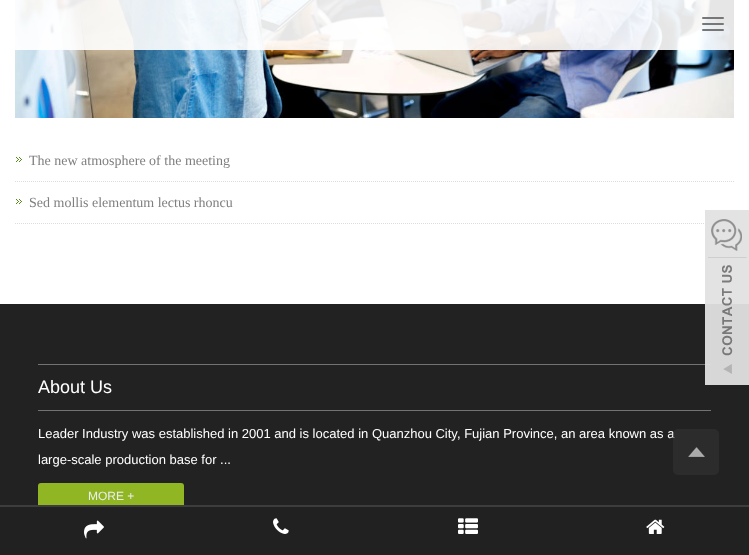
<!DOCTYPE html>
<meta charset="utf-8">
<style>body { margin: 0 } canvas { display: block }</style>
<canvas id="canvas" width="749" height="555"></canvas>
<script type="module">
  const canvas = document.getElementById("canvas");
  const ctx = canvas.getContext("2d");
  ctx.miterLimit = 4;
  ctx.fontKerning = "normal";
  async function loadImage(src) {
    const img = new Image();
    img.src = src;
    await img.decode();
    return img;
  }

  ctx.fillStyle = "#ffffff";
  ctx.fillRect(0, 0, 749, 555);
  ctx.drawImage(await loadImage("img1.png"), 15, 0, 719, 118);
  ctx.fillStyle = "rgba(255, 255, 255, 0.9)";
  ctx.fillRect(15, 0, 719, 50);
  ctx.fillStyle = "#777777";
  ctx.beginPath();
  ctx.roundRect(702, 17, 22, 2, 1);
  ctx.fill();
  ctx.beginPath();
  ctx.roundRect(702, 23, 22, 2, 1);
  ctx.fill();
  ctx.beginPath();
  ctx.roundRect(702, 29, 22, 2, 1);
  ctx.fill();
  ctx.drawImage(await loadImage("img2.png"), 16, 157, 6, 5);
  ctx.beginPath();
  ctx.moveTo(15, 181.5);
  ctx.lineTo(734, 181.5);
  ctx.strokeStyle = "#dddddd";
  ctx.setLineDash([1, 1]);
  ctx.stroke();
  ctx.font = "14px Liberation Serif";
  ctx.fillStyle = "#7f7f80";
  ctx.fillText("The new atmosphere of the meeting", 29, 165);
  ctx.drawImage(await loadImage("img2.png"), 16, 199, 6, 5);
  ctx.beginPath();
  ctx.moveTo(15, 223.5);
  ctx.lineTo(734, 223.5);
  ctx.stroke();
  ctx.fillText("Sed mollis elementum lectus rhoncu", 29, 207);
  ctx.fillStyle = "#222222";
  ctx.fillRect(0, 304, 749, 201);
  ctx.fillStyle = "#717375";
  ctx.fillRect(38, 364, 673, 1);
  ctx.drawImage(await loadImage("img3.png"), 705, 210, 44, 175);
  ctx.fillRect(38, 410, 673, 1);
  ctx.font = "18px Liberation Sans";
  ctx.fillStyle = "#ffffff";
  ctx.fillText("About Us", 38, 393);
  ctx.font = "13px Liberation Sans";
  ctx.fillText("Leader Industry was established in 2001 and is located in Quanzhou City, Fujian Province, an area known as a", 38, 438);
  ctx.fillText("large-scale production base for ...", 38, 464);
  ctx.fillStyle = "#90b623";
  ctx.beginPath();
  ctx.roundRect(38, 483, 146, 28, 3);
  ctx.fill();
  ctx.font = "12px Liberation Sans";
  ctx.fillStyle = "#ececec";
  ctx.fillText("MORE +", 88, 500);
  ctx.fillStyle = "rgba(51, 51, 51, 0.6)";
  ctx.beginPath();
  ctx.roundRect(673, 429, 46, 46, 5);
  ctx.fill();
  ctx.drawImage(await loadImage("img4.png"), 688, 447, 17, 10);
  ctx.fillStyle = "#212121";
  ctx.fillRect(0, 507, 749, 48);
  ctx.fillStyle = "#3d3d3d";
  ctx.fillRect(0, 505, 749, 2);
  ctx.drawImage(await loadImage("img5.png"), 84, 520, 20, 19);
  ctx.drawImage(await loadImage("img6.png"), 273, 518, 16, 16);
  ctx.drawImage(await loadImage("img7.png"), 458, 518, 20, 16);
  ctx.drawImage(await loadImage("img8.png"), 646, 519, 19, 15);
</script>
